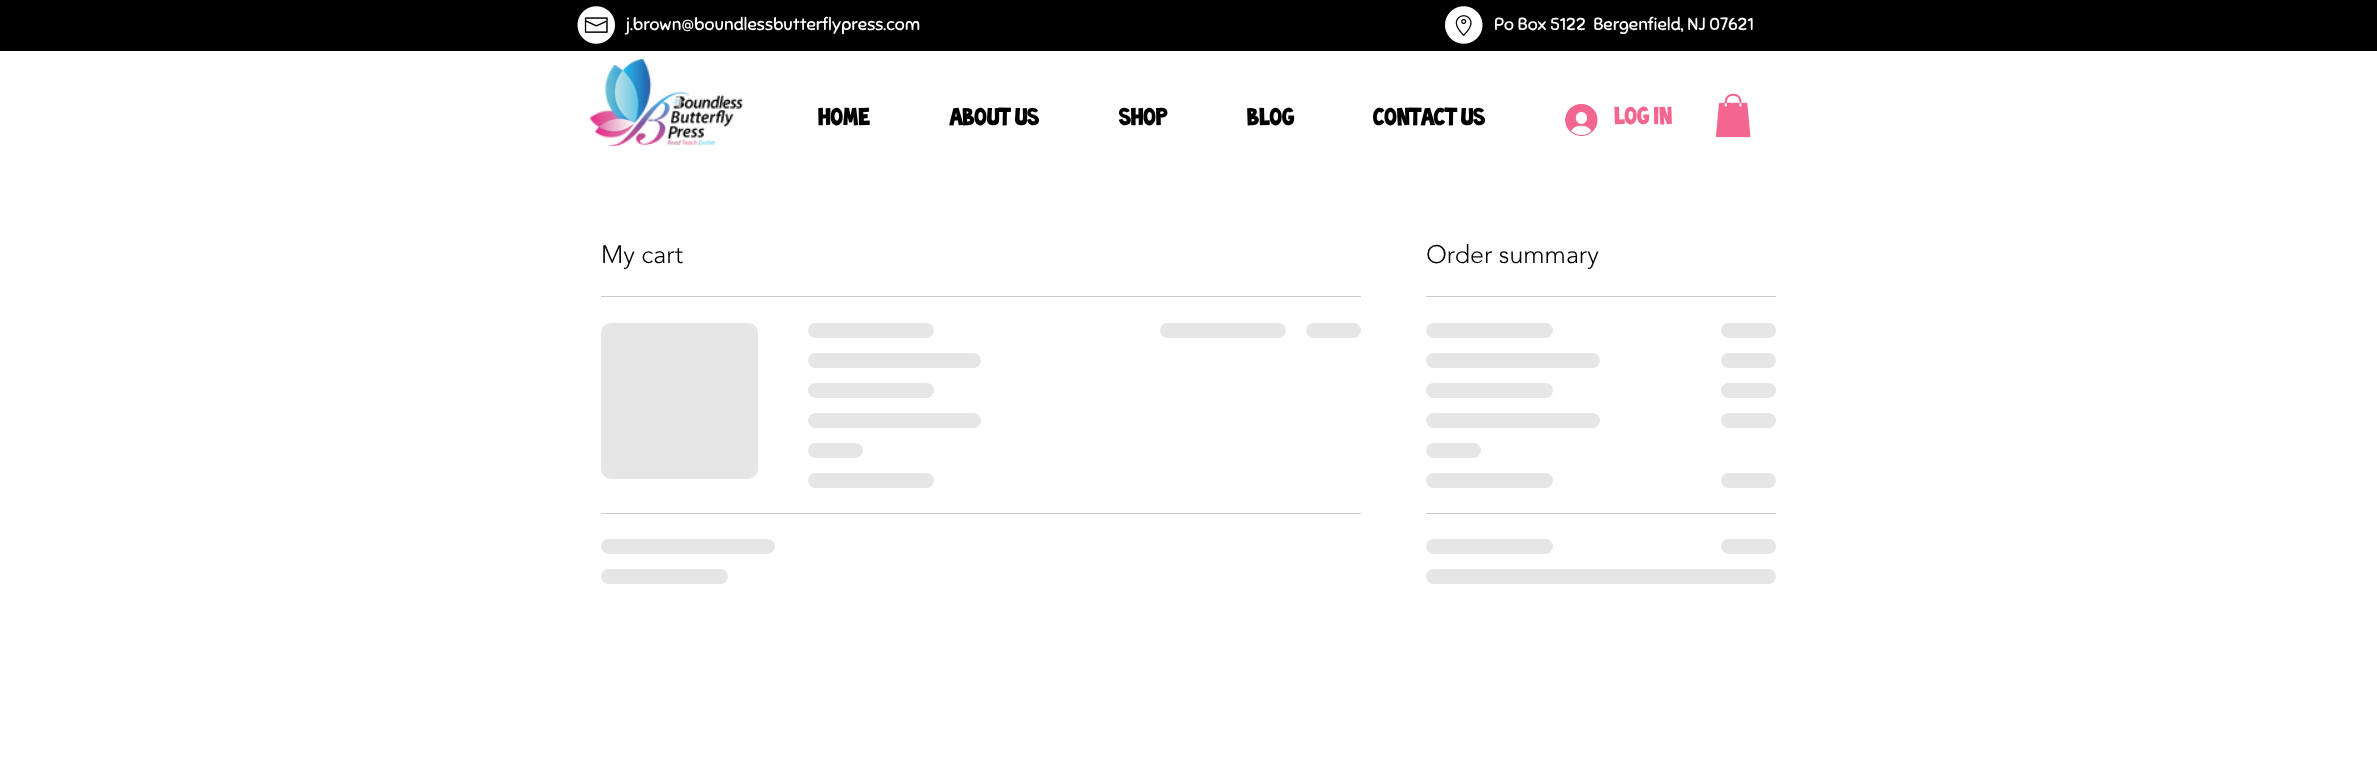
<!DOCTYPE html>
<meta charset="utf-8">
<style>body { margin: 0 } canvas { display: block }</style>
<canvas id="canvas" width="2377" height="765"></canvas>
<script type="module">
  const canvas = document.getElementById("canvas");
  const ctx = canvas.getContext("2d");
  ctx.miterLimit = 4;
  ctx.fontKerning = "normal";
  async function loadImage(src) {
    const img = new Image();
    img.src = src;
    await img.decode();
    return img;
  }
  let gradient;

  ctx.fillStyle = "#ffffff";
  ctx.fillRect(0, 0, 2377, 765);
  ctx.fillStyle = "#000000";
  ctx.fillRect(0, 0, 2377, 51);
  ctx.drawImage(await loadImage("img1.png"), 577, 6, 38, 38);
  ctx.font = "17.5px Sniglet";
  ctx.fillStyle = "#ffffff";
  ctx.fillText("j.brown@boundlessbutterflypress.com", 626, 30);
  ctx.drawImage(await loadImage("img2.png"), 1445, 6, 38, 38);
  ctx.fillText("Po Box 5122  Bergenfield, NJ 07621", 1494, 30);
  ctx.drawImage(await loadImage("img3.png"), 590, 58, 153, 89);
  ctx.font = "22.5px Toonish";
  ctx.fillStyle = "#000000";
  ctx.fillText("Home", 818, 125);
  ctx.fillText("ABOUT US", 950, 125);
  ctx.fillText("SHOP", 1119, 125);
  ctx.fillText("BLOG", 1247, 125);
  ctx.fillText("CONTACT US", 1373, 125);
  ctx.drawImage(await loadImage("img4.png"), 1565, 104, 33, 32);
  ctx.fillStyle = "#f2668f";
  ctx.fillText("Log In", 1614, 124);
  ctx.drawImage(await loadImage("img5.png"), 1715, 93, 36, 45);
  ctx.fillStyle = "#cccccc";
  ctx.fillRect(601, 296, 760, 1);
  ctx.font = "300 25px 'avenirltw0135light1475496'";
  ctx.fillStyle = "#000000";
  ctx.fillText("My cart", 601, 263);
  gradient = ctx.createLinearGradient(601, 401, 1226, 401);
  gradient.addColorStop(0.25, "#e6e6e6");
  gradient.addColorStop(0.37, "#cccccc");
  gradient.addColorStop(0.63, "#e6e6e6");
  ctx.fillStyle = gradient;
  ctx.beginPath();
  ctx.roundRect(601, 323, 157, 156, 10);
  ctx.fill();
  gradient = ctx.createLinearGradient(808, 330, 1313, 330);
  gradient.addColorStop(0.25, "#e6e6e6");
  gradient.addColorStop(0.37, "#cccccc");
  gradient.addColorStop(0.63, "#e6e6e6");
  ctx.fillStyle = gradient;
  ctx.beginPath();
  ctx.roundRect(808, 323, 126, 15, 7.5);
  ctx.fill();
  gradient = ctx.createLinearGradient(808, 360, 1503, 360);
  gradient.addColorStop(0.25, "#e6e6e6");
  gradient.addColorStop(0.37, "#cccccc");
  gradient.addColorStop(0.63, "#e6e6e6");
  ctx.fillStyle = gradient;
  ctx.beginPath();
  ctx.roundRect(808, 353, 173, 15, 7.5);
  ctx.fill();
  gradient = ctx.createLinearGradient(808, 390, 1313, 390);
  gradient.addColorStop(0.25, "#e6e6e6");
  gradient.addColorStop(0.37, "#cccccc");
  gradient.addColorStop(0.63, "#e6e6e6");
  ctx.fillStyle = gradient;
  ctx.beginPath();
  ctx.roundRect(808, 383, 126, 15, 7.5);
  ctx.fill();
  gradient = ctx.createLinearGradient(808, 420, 1503, 420);
  gradient.addColorStop(0.25, "#e6e6e6");
  gradient.addColorStop(0.37, "#cccccc");
  gradient.addColorStop(0.63, "#e6e6e6");
  ctx.fillStyle = gradient;
  ctx.beginPath();
  ctx.roundRect(808, 413, 173, 15, 7.5);
  ctx.fill();
  gradient = ctx.createLinearGradient(808, 450, 1028, 450);
  gradient.addColorStop(0.25, "#e6e6e6");
  gradient.addColorStop(0.37, "#cccccc");
  gradient.addColorStop(0.63, "#e6e6e6");
  ctx.fillStyle = gradient;
  ctx.beginPath();
  ctx.roundRect(808, 443, 55, 15, 7.5);
  ctx.fill();
  gradient = ctx.createLinearGradient(808, 480, 1313, 480);
  gradient.addColorStop(0.25, "#e6e6e6");
  gradient.addColorStop(0.37, "#cccccc");
  gradient.addColorStop(0.63, "#e6e6e6");
  ctx.fillStyle = gradient;
  ctx.beginPath();
  ctx.roundRect(808, 473, 126, 15, 7.5);
  ctx.fill();
  gradient = ctx.createLinearGradient(1160, 330, 1665, 330);
  gradient.addColorStop(0.25, "#e6e6e6");
  gradient.addColorStop(0.37, "#cccccc");
  gradient.addColorStop(0.63, "#e6e6e6");
  ctx.fillStyle = gradient;
  ctx.beginPath();
  ctx.roundRect(1160, 323, 126, 15, 7.5);
  ctx.fill();
  gradient = ctx.createLinearGradient(1306, 330, 1526, 330);
  gradient.addColorStop(0.25, "#e6e6e6");
  gradient.addColorStop(0.37, "#cccccc");
  gradient.addColorStop(0.63, "#e6e6e6");
  ctx.fillStyle = gradient;
  ctx.beginPath();
  ctx.roundRect(1306, 323, 55, 15, 7.5);
  ctx.fill();
  ctx.fillStyle = "#cccccc";
  ctx.fillRect(601, 513, 760, 1);
  gradient = ctx.createLinearGradient(601, 546, 1296, 546);
  gradient.addColorStop(0.25, "#e6e6e6");
  gradient.addColorStop(0.37, "#cccccc");
  gradient.addColorStop(0.63, "#e6e6e6");
  ctx.fillStyle = gradient;
  ctx.beginPath();
  ctx.roundRect(601, 539, 174, 15, 7.5);
  ctx.fill();
  gradient = ctx.createLinearGradient(601, 576, 1106, 576);
  gradient.addColorStop(0.25, "#e6e6e6");
  gradient.addColorStop(0.37, "#cccccc");
  gradient.addColorStop(0.63, "#e6e6e6");
  ctx.fillStyle = gradient;
  ctx.beginPath();
  ctx.roundRect(601, 569, 127, 15, 7.5);
  ctx.fill();
  ctx.fillStyle = "#cccccc";
  ctx.fillRect(1426, 296, 350, 1);
  ctx.fillStyle = "#000000";
  ctx.fillText("Order summary", 1426, 263);
  gradient = ctx.createLinearGradient(1426, 330, 1931, 330);
  gradient.addColorStop(0.25, "#e6e6e6");
  gradient.addColorStop(0.37, "#cccccc");
  gradient.addColorStop(0.63, "#e6e6e6");
  ctx.fillStyle = gradient;
  ctx.beginPath();
  ctx.roundRect(1426, 323, 127, 15, 7.5);
  ctx.fill();
  gradient = ctx.createLinearGradient(1721, 330, 1941, 330);
  gradient.addColorStop(0.25, "#e6e6e6");
  gradient.addColorStop(0.37, "#cccccc");
  gradient.addColorStop(0.63, "#e6e6e6");
  ctx.fillStyle = gradient;
  ctx.beginPath();
  ctx.roundRect(1721, 323, 55, 15, 7.5);
  ctx.fill();
  gradient = ctx.createLinearGradient(1426, 360, 2121, 360);
  gradient.addColorStop(0.25, "#e6e6e6");
  gradient.addColorStop(0.37, "#cccccc");
  gradient.addColorStop(0.63, "#e6e6e6");
  ctx.fillStyle = gradient;
  ctx.beginPath();
  ctx.roundRect(1426, 353, 174, 15, 7.5);
  ctx.fill();
  gradient = ctx.createLinearGradient(1721, 360, 1941, 360);
  gradient.addColorStop(0.25, "#e6e6e6");
  gradient.addColorStop(0.37, "#cccccc");
  gradient.addColorStop(0.63, "#e6e6e6");
  ctx.fillStyle = gradient;
  ctx.beginPath();
  ctx.roundRect(1721, 353, 55, 15, 7.5);
  ctx.fill();
  gradient = ctx.createLinearGradient(1426, 390, 1931, 390);
  gradient.addColorStop(0.25, "#e6e6e6");
  gradient.addColorStop(0.37, "#cccccc");
  gradient.addColorStop(0.63, "#e6e6e6");
  ctx.fillStyle = gradient;
  ctx.beginPath();
  ctx.roundRect(1426, 383, 127, 15, 7.5);
  ctx.fill();
  gradient = ctx.createLinearGradient(1721, 390, 1941, 390);
  gradient.addColorStop(0.25, "#e6e6e6");
  gradient.addColorStop(0.37, "#cccccc");
  gradient.addColorStop(0.63, "#e6e6e6");
  ctx.fillStyle = gradient;
  ctx.beginPath();
  ctx.roundRect(1721, 383, 55, 15, 7.5);
  ctx.fill();
  gradient = ctx.createLinearGradient(1426, 420, 2121, 420);
  gradient.addColorStop(0.25, "#e6e6e6");
  gradient.addColorStop(0.37, "#cccccc");
  gradient.addColorStop(0.63, "#e6e6e6");
  ctx.fillStyle = gradient;
  ctx.beginPath();
  ctx.roundRect(1426, 413, 174, 15, 7.5);
  ctx.fill();
  gradient = ctx.createLinearGradient(1721, 420, 1941, 420);
  gradient.addColorStop(0.25, "#e6e6e6");
  gradient.addColorStop(0.37, "#cccccc");
  gradient.addColorStop(0.63, "#e6e6e6");
  ctx.fillStyle = gradient;
  ctx.beginPath();
  ctx.roundRect(1721, 413, 55, 15, 7.5);
  ctx.fill();
  gradient = ctx.createLinearGradient(1426, 450, 1646, 450);
  gradient.addColorStop(0.25, "#e6e6e6");
  gradient.addColorStop(0.37, "#cccccc");
  gradient.addColorStop(0.63, "#e6e6e6");
  ctx.fillStyle = gradient;
  ctx.beginPath();
  ctx.roundRect(1426, 443, 55, 15, 7.5);
  ctx.fill();
  gradient = ctx.createLinearGradient(1426, 480, 1931, 480);
  gradient.addColorStop(0.25, "#e6e6e6");
  gradient.addColorStop(0.37, "#cccccc");
  gradient.addColorStop(0.63, "#e6e6e6");
  ctx.fillStyle = gradient;
  ctx.beginPath();
  ctx.roundRect(1426, 473, 127, 15, 7.5);
  ctx.fill();
  gradient = ctx.createLinearGradient(1721, 480, 1941, 480);
  gradient.addColorStop(0.25, "#e6e6e6");
  gradient.addColorStop(0.37, "#cccccc");
  gradient.addColorStop(0.63, "#e6e6e6");
  ctx.fillStyle = gradient;
  ctx.beginPath();
  ctx.roundRect(1721, 473, 55, 15, 7.5);
  ctx.fill();
  ctx.fillStyle = "#cccccc";
  ctx.fillRect(1426, 513, 350, 1);
  gradient = ctx.createLinearGradient(1426, 546, 1931, 546);
  gradient.addColorStop(0.25, "#e6e6e6");
  gradient.addColorStop(0.37, "#cccccc");
  gradient.addColorStop(0.63, "#e6e6e6");
  ctx.fillStyle = gradient;
  ctx.beginPath();
  ctx.roundRect(1426, 539, 127, 15, 7.5);
  ctx.fill();
  gradient = ctx.createLinearGradient(1721, 546, 1941, 546);
  gradient.addColorStop(0.25, "#e6e6e6");
  gradient.addColorStop(0.37, "#cccccc");
  gradient.addColorStop(0.63, "#e6e6e6");
  ctx.fillStyle = gradient;
  ctx.beginPath();
  ctx.roundRect(1721, 539, 55, 15, 7.5);
  ctx.fill();
  gradient = ctx.createLinearGradient(1426, 576, 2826, 576);
  gradient.addColorStop(0.25, "#e6e6e6");
  gradient.addColorStop(0.37, "#cccccc");
  gradient.addColorStop(0.63, "#e6e6e6");
  ctx.fillStyle = gradient;
  ctx.beginPath();
  ctx.roundRect(1426, 569, 350, 15, 7.5);
  ctx.fill();
</script>
